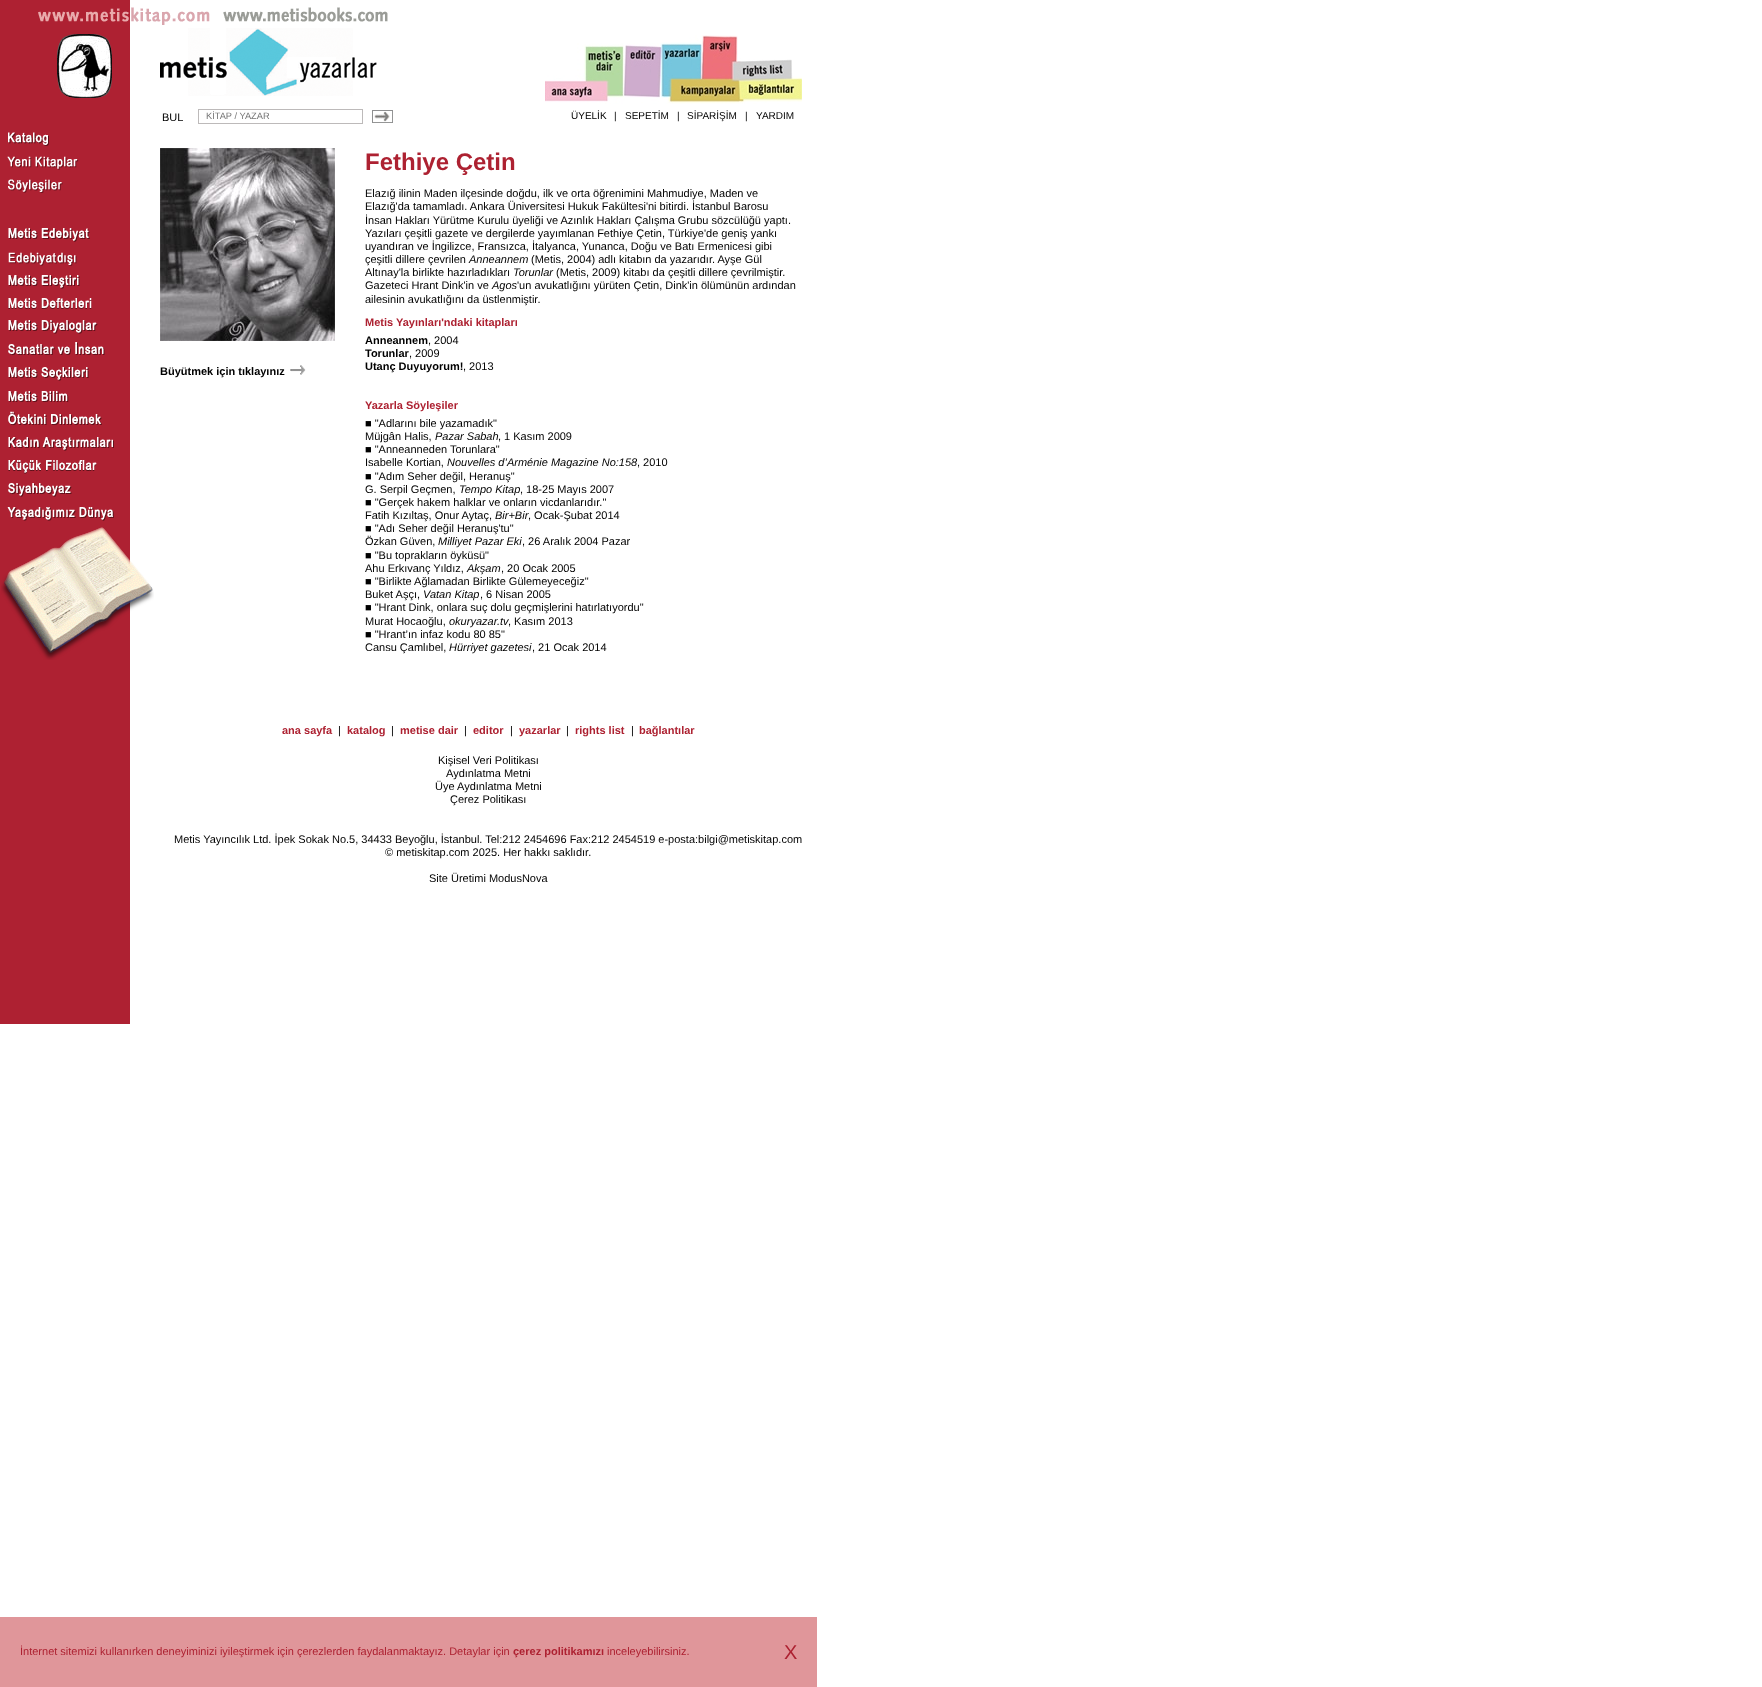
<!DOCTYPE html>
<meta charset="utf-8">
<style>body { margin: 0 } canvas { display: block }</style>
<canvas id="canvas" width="1762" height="1687"></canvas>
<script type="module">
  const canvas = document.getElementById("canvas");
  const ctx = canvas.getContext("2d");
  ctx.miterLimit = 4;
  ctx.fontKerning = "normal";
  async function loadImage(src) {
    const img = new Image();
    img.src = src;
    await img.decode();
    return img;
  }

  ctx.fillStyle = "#ffffff";
  ctx.fillRect(0, 0, 1762, 1687);
  ctx.fillStyle = "#ae2132";
  ctx.fillRect(0, 0, 130, 1024);
  ctx.drawImage(await loadImage("img1.png"), 38, 7, 172, 18);
  ctx.drawImage(await loadImage("img2.png"), 223, 7, 165, 15);
  ctx.drawImage(await loadImage("img3.png"), 57, 34, 55, 64);
  ctx.drawImage(await loadImage("img4.png"), 160, 28, 217, 68);
  ctx.drawImage(await loadImage("img5.png"), 545, 35, 257, 69);
  ctx.font = "11px Liberation Sans";
  ctx.fillStyle = "#000000";
  ctx.fillText("BUL", 162, 121);
  ctx.strokeStyle = "#bdbaba";
  ctx.strokeRect(198.5, 109.5, 164, 14);
  ctx.font = "9.25px Liberation Sans";
  ctx.fillStyle = "#757575";
  ctx.fillText("KİTAP / YAZAR", 206, 119);
  ctx.drawImage(await loadImage("img6.png"), 372, 110, 21, 13);
  ctx.font = "10px Liberation Sans";
  ctx.fillStyle = "#000000";
  ctx.fillText("ÜYELİK", 571, 119);
  ctx.fillText("|", 614, 119);
  ctx.fillText("SEPETİM", 625, 119);
  ctx.fillText("|", 677, 119);
  ctx.fillText("SİPARİŞİM", 687, 119);
  ctx.fillText("|", 745, 119);
  ctx.fillText("YARDIM", 756, 119);
  ctx.drawImage(await loadImage("img7.png"), 8, 132, 41, 14);
  ctx.drawImage(await loadImage("img8.png"), 7, 156, 72, 14);
  ctx.drawImage(await loadImage("img9.png"), 8, 179, 55, 14);
  ctx.drawImage(await loadImage("img10.png"), 8, 228, 82, 14);
  ctx.drawImage(await loadImage("img11.png"), 8, 252, 69, 14);
  ctx.drawImage(await loadImage("img12.png"), 8, 275, 72, 14);
  ctx.drawImage(await loadImage("img13.png"), 8, 298, 84, 11);
  ctx.drawImage(await loadImage("img14.png"), 8, 320, 90, 14);
  ctx.drawImage(await loadImage("img15.png"), 8, 342, 97, 14);
  ctx.drawImage(await loadImage("img16.png"), 8, 367, 81, 14);
  ctx.drawImage(await loadImage("img17.png"), 8, 391, 61, 11);
  ctx.drawImage(await loadImage("img18.png"), 8, 411, 94, 15);
  ctx.drawImage(await loadImage("img19.png"), 8, 437, 106, 14);
  ctx.drawImage(await loadImage("img20.png"), 8, 460, 89, 14);
  ctx.drawImage(await loadImage("img21.png"), 8, 483, 64, 14);
  ctx.drawImage(await loadImage("img22.png"), 7, 507, 107, 14);
  ctx.drawImage(await loadImage("img23.png"), 1, 527, 153, 133);
  ctx.drawImage(await loadImage("img24.png"), 160, 148, 175, 193);
  ctx.font = "bold 11px Liberation Sans";
  ctx.fillText("Büyütmek için tıklayınız", 160, 375);
  ctx.drawImage(await loadImage("img25.png"), 290, 365, 16, 10);
  ctx.font = "bold 24px Liberation Sans";
  ctx.fillStyle = "#ad2131";
  ctx.fillText("Fethiye Çetin", 365, 170);
  ctx.font = "11px Liberation Sans";
  ctx.fillStyle = "#000000";
  ctx.fillText("Elazığ ilinin Maden ilçesinde doğdu, ilk ve orta öğrenimini Mahmudiye, Maden ve", 365, 197);
  ctx.fillText("Elazığ'da tamamladı. Ankara Üniversitesi Hukuk Fakültesi'ni bitirdi. İstanbul Barosu", 365, 210);
  ctx.fillText("İnsan Hakları Yürütme Kurulu üyeliği ve Azınlık Hakları Çalışma Grubu sözcülüğü yaptı.", 365, 224);
  ctx.fillText("Yazıları çeşitli gazete ve dergilerde yayımlanan Fethiye Çetin, Türkiye'de geniş yankı", 365, 237);
  ctx.fillText("uyandıran ve İngilizce, Fransızca, İtalyanca, Yunanca, Doğu ve Batı Ermenicesi gibi", 365, 250);
  ctx.fillText("çeşitli dillere çevrilen", 365, 263);
  ctx.font = "italic 11px Liberation Sans";
  ctx.fillText("Anneannem", 469, 263);
  ctx.font = "11px Liberation Sans";
  ctx.fillText("(Metis, 2004) adlı kitabın da yazarıdır. Ayşe Gül", 531, 263);
  ctx.fillText("Altınay'la birlikte hazırladıkları", 365, 276);
  ctx.font = "italic 11px Liberation Sans";
  ctx.fillText("Torunlar", 513, 276);
  ctx.font = "11px Liberation Sans";
  ctx.fillText("(Metis, 2009) kitabı da çeşitli dillere çevrilmiştir.", 556, 276);
  ctx.fillText("Gazeteci Hrant Dink'in ve", 365, 289);
  ctx.font = "italic 11px Liberation Sans";
  ctx.fillText("Agos", 492, 289);
  ctx.font = "11px Liberation Sans";
  ctx.fillText("'un avukatlığını yürüten Çetin, Dink'in ölümünün ardından", 517, 289);
  ctx.fillText("ailesinin avukatlığını da üstlenmiştir.", 365, 303);
  ctx.font = "bold 11px Liberation Sans";
  ctx.fillStyle = "#ad2131";
  ctx.fillText("Metis Yayınları'ndaki kitapları", 365, 326);
  ctx.fillStyle = "#000000";
  ctx.fillText("Anneannem", 365, 344);
  ctx.font = "11px Liberation Sans";
  ctx.fillText(", 2004", 428, 344);
  ctx.font = "bold 11px Liberation Sans";
  ctx.fillText("Torunlar", 365, 357);
  ctx.font = "11px Liberation Sans";
  ctx.fillText(", 2009", 409, 357);
  ctx.font = "bold 11px Liberation Sans";
  ctx.fillText("Utanç Duyuyorum!", 365, 370);
  ctx.font = "11px Liberation Sans";
  ctx.fillText(", 2013", 463, 370);
  ctx.font = "bold 11px Liberation Sans";
  ctx.fillStyle = "#ad2131";
  ctx.fillText("Yazarla Söyleşiler", 365, 409);
  ctx.font = "11px Liberation Sans";
  ctx.fillStyle = "#000000";
  ctx.fillText("■ \"Adlarını bile yazamadık\"", 365, 427);
  ctx.fillText("Müjgân Halis,", 365, 440);
  ctx.font = "italic 11px Liberation Sans";
  ctx.fillText("Pazar Sabah", 435, 440);
  ctx.font = "11px Liberation Sans";
  ctx.fillText(", 1 Kasım 2009", 498, 440);
  ctx.fillText("■ \"Anneanneden Torunlara\"", 365, 453);
  ctx.fillText("Isabelle Kortian,", 365, 466);
  ctx.font = "italic 11px Liberation Sans";
  ctx.fillText("Nouvelles d’Arménie Magazine No:158", 447, 466);
  ctx.font = "11px Liberation Sans";
  ctx.fillText(", 2010", 637, 466);
  ctx.fillText("■ \"Adım Seher değil, Heranuş\"", 365, 480);
  ctx.fillText("G. Serpil Geçmen,", 365, 493);
  ctx.font = "italic 11px Liberation Sans";
  ctx.fillText("Tempo Kitap", 459, 493);
  ctx.font = "11px Liberation Sans";
  ctx.fillText(", 18-25 Mayıs 2007", 520, 493);
  ctx.fillText("■ \"Gerçek hakem halklar ve onların vicdanlarıdır.\"", 365, 506);
  ctx.fillText("Fatih Kızıltaş, Onur Aytaç,", 365, 519);
  ctx.font = "italic 11px Liberation Sans";
  ctx.fillText("Bir+Bir", 495, 519);
  ctx.font = "11px Liberation Sans";
  ctx.fillText(", Ocak-Şubat 2014", 528, 519);
  ctx.fillText("■ \"Adı Seher değil Heranuş'tu\"", 365, 532);
  ctx.fillText("Özkan Güven,", 365, 545);
  ctx.font = "italic 11px Liberation Sans";
  ctx.fillText("Milliyet Pazar Eki", 438, 545);
  ctx.font = "11px Liberation Sans";
  ctx.fillText(", 26 Aralık 2004 Pazar", 522, 545);
  ctx.fillText("■ \"Bu toprakların öyküsü\"", 365, 559);
  ctx.fillText("Ahu Erkıvanç Yıldız,", 365, 572);
  ctx.font = "italic 11px Liberation Sans";
  ctx.fillText("Akşam", 467, 572);
  ctx.font = "11px Liberation Sans";
  ctx.fillText(", 20 Ocak 2005", 501, 572);
  ctx.fillText("■ \"Birlikte Ağlamadan Birlikte Gülemeyeceğiz\"", 365, 585);
  ctx.fillText("Buket Aşçı,", 365, 598);
  ctx.font = "italic 11px Liberation Sans";
  ctx.fillText("Vatan Kitap", 423, 598);
  ctx.font = "11px Liberation Sans";
  ctx.fillText(", 6 Nisan 2005", 480, 598);
  ctx.fillText("■ \"Hrant Dink, onlara suç dolu geçmişlerini hatırlatıyordu\"", 365, 611);
  ctx.fillText("Murat Hocaoğlu,", 365, 625);
  ctx.font = "italic 11px Liberation Sans";
  ctx.fillText("okuryazar.tv", 449, 625);
  ctx.font = "11px Liberation Sans";
  ctx.fillText(", Kasım 2013", 508, 625);
  ctx.fillText("■ \"Hrant’ın infaz kodu 80 85\"", 365, 638);
  ctx.fillText("Cansu Çamlıbel,", 365, 651);
  ctx.font = "italic 11px Liberation Sans";
  ctx.fillText("Hürriyet gazetesi", 449, 651);
  ctx.font = "11px Liberation Sans";
  ctx.fillText(", 21 Ocak 2014", 532, 651);
  ctx.font = "bold 11px Liberation Sans";
  ctx.fillStyle = "#ad2131";
  ctx.fillText("ana sayfa", 282, 734);
  ctx.font = "11px Liberation Sans";
  ctx.fillStyle = "#000000";
  ctx.fillText("|", 338, 734);
  ctx.font = "bold 11px Liberation Sans";
  ctx.fillStyle = "#ad2131";
  ctx.fillText("katalog", 347, 734);
  ctx.font = "11px Liberation Sans";
  ctx.fillStyle = "#000000";
  ctx.fillText("|", 391, 734);
  ctx.font = "bold 11px Liberation Sans";
  ctx.fillStyle = "#ad2131";
  ctx.fillText("metise dair", 400, 734);
  ctx.font = "11px Liberation Sans";
  ctx.fillStyle = "#000000";
  ctx.fillText("|", 464, 734);
  ctx.font = "bold 11px Liberation Sans";
  ctx.fillStyle = "#ad2131";
  ctx.fillText("editor", 473, 734);
  ctx.font = "11px Liberation Sans";
  ctx.fillStyle = "#000000";
  ctx.fillText("|", 510, 734);
  ctx.font = "bold 11px Liberation Sans";
  ctx.fillStyle = "#ad2131";
  ctx.fillText("yazarlar", 519, 734);
  ctx.font = "11px Liberation Sans";
  ctx.fillStyle = "#000000";
  ctx.fillText("|", 566, 734);
  ctx.font = "bold 11px Liberation Sans";
  ctx.fillStyle = "#ad2131";
  ctx.fillText("rights list", 575, 734);
  ctx.font = "11px Liberation Sans";
  ctx.fillStyle = "#000000";
  ctx.fillText("|", 631, 734);
  ctx.font = "bold 11px Liberation Sans";
  ctx.fillStyle = "#ad2131";
  ctx.fillText("bağlantılar", 639, 734);
  ctx.font = "11px Liberation Sans";
  ctx.fillStyle = "#000000";
  ctx.fillText("Kişisel Veri Politikası", 438, 764);
  ctx.fillText("Aydınlatma Metni", 446, 777);
  ctx.fillText("Üye Aydınlatma Metni", 435, 790);
  ctx.fillText("Çerez Politikası", 450, 803);
  ctx.fillText("Metis Yayıncılık Ltd. İpek Sokak No.5, 34433 Beyoğlu, İstanbul. Tel:212 2454696 Fax:212 2454519 e-posta:bilgi@metiskitap.com", 174, 843);
  ctx.fillText("© metiskitap.com 2025. Her hakkı saklıdır.", 385, 856);
  ctx.fillText("Site Üretimi ModusNova", 429, 882);
  ctx.fillStyle = "#e0969a";
  ctx.fillRect(0, 1617, 817, 70);
  ctx.fillStyle = "#ad2131";
  ctx.fillText("İnternet sitemizi kullanırken deneyiminizi iyileştirmek için çerezlerden faydalanmaktayız. Detaylar için", 20, 1655);
  ctx.font = "bold 11px Liberation Sans";
  ctx.fillText("çerez politikamızı", 513, 1655);
  ctx.font = "11px Liberation Sans";
  ctx.fillText("inceleyebilirsiniz.", 607, 1655);
  ctx.font = "20px Liberation Sans";
  ctx.fillText("X", 784, 1659);
</script>
